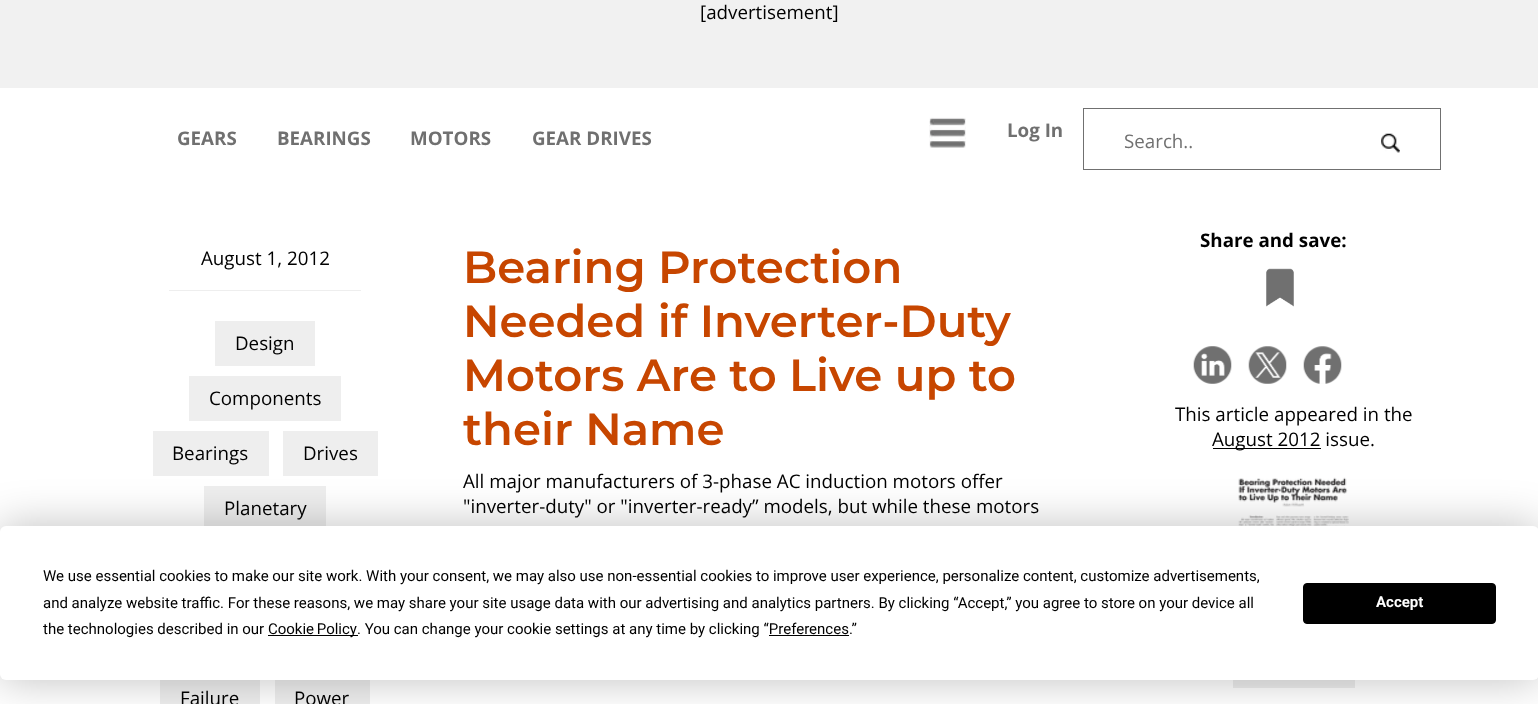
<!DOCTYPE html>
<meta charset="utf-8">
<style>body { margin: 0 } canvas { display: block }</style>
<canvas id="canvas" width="1538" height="704"></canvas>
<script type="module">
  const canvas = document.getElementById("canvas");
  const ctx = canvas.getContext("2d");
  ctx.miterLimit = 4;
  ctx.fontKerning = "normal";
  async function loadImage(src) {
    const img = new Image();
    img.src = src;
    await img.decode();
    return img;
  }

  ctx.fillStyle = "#ffffff";
  ctx.fillRect(0, 0, 1538, 704);
  ctx.fillStyle = "#f1f1f1";
  ctx.fillRect(0, 0, 1538, 88);
  ctx.font = "18.75px Open Sans";
  ctx.fillStyle = "#000000";
  ctx.fillText("[advertisement]", 700, 19);
  ctx.font = "bold 18.75px Open Sans";
  ctx.fillStyle = "#707070";
  ctx.fillText("GEARS", 177, 145);
  ctx.fillText("BEARINGS", 277, 145);
  ctx.fillText("MOTORS", 410, 145);
  ctx.fillText("GEAR DRIVES", 532, 145);
  ctx.drawImage(await loadImage("img1.png"), 929, 117, 37, 31);
  ctx.fillText("Log In", 1007, 137);
  ctx.strokeStyle = "#707070";
  ctx.strokeRect(1083.5, 108.5, 357, 61);
  ctx.font = "18.75px Open Sans";
  ctx.fillText("Search..", 1124, 148);
  ctx.drawImage(await loadImage("img2.png"), 1381, 133, 19, 20);
  ctx.fillStyle = "#000000";
  ctx.fillText("August 1, 2012", 201, 265);
  ctx.fillStyle = "#eeeeee";
  ctx.fillRect(169, 290, 192, 1);
  ctx.fillRect(215, 321, 100, 45);
  ctx.fillStyle = "#000000";
  ctx.fillText("Design", 235, 350);
  ctx.fillStyle = "#eeeeee";
  ctx.fillRect(189, 376, 152, 45);
  ctx.fillStyle = "#000000";
  ctx.fillText("Components", 209, 405);
  ctx.fillStyle = "#eeeeee";
  ctx.fillRect(153, 431, 116, 45);
  ctx.fillStyle = "#000000";
  ctx.fillText("Bearings", 172, 460);
  ctx.fillStyle = "#eeeeee";
  ctx.fillRect(283, 431, 95, 45);
  ctx.fillStyle = "#000000";
  ctx.fillText("Drives", 303, 460);
  ctx.fillStyle = "#eeeeee";
  ctx.fillRect(204, 486, 122, 40);
  ctx.fillStyle = "#000000";
  ctx.fillText("Planetary", 224, 515);
  ctx.fillStyle = "#eeeeee";
  ctx.fillRect(160, 680, 100, 24);
  ctx.fillStyle = "#000000";
  ctx.fillText("Failure", 180, 705);
  ctx.fillStyle = "#eeeeee";
  ctx.fillRect(275, 680, 95, 24);
  ctx.fillStyle = "#000000";
  ctx.fillText("Power", 294, 705);
  ctx.font = "600 45px Montserrat";
  ctx.fillStyle = "#c74600";
  ctx.fillText("Bearing Protection", 463, 283);
  ctx.fillText("Needed if Inverter-Duty", 463, 337);
  ctx.fillText("Motors Are to Live up to", 463, 391);
  ctx.fillText("their Name", 463, 445);
  ctx.font = "18.75px Open Sans";
  ctx.fillStyle = "#000000";
  ctx.fillText("All major manufacturers of 3-phase AC induction motors offer", 463, 488);
  ctx.fillText("\"inverter-duty\" or \"inverter-ready” models, but while these motors", 463, 513);
  ctx.font = "bold 18.75px Open Sans";
  ctx.fillText("Share and save:", 1200, 247);
  ctx.drawImage(await loadImage("img3.png"), 1266, 268, 28, 39);
  ctx.drawImage(await loadImage("img4.png"), 1193, 346, 39, 38);
  ctx.drawImage(await loadImage("img5.png"), 1248, 346, 39, 38);
  ctx.drawImage(await loadImage("img6.png"), 1303, 346, 39, 38);
  ctx.font = "18.75px Open Sans";
  ctx.fillText("This article appeared in the", 1175, 421);
  ctx.fillRect(1213, 448, 108, 1);
  ctx.fillText("August 2012 issue.", 1212, 446);
  ctx.drawImage(await loadImage("img7.png"), 1238, 477, 111, 49);
  ctx.fillStyle = "#eeeeee";
  ctx.fillRect(1233, 680, 122, 8);
  ctx.fillStyle = "rgba(0, 0, 0, 0.25)";
  ctx.filter = "blur(22px)";
  ctx.beginPath();
  ctx.roundRect(0, 526, 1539, 154, 6);
  ctx.fill();
  ctx.filter = "none";
  ctx.fillStyle = "#ffffff";
  ctx.beginPath();
  ctx.roundRect(0, 526, 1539, 154, 6);
  ctx.fill();
  ctx.font = "15px Roboto";
  ctx.fillStyle = "#000000";
  ctx.fillText("We use essential cookies to make our site work. With your consent, we may also use non-essential cookies to improve user experience, personalize content, customize advertisements,", 43, 581);
  ctx.fillText("and analyze website traffic. For these reasons, we may share your site usage data with our advertising and analytics partners. By clicking “Accept,” you agree to store on your device all", 43, 608);
  ctx.fillText("the technologies described in our", 43, 634);
  ctx.fillRect(268, 635, 90, 1);
  ctx.wordSpacing = "-1px";
  ctx.fillText("Cookie Policy", 268, 634);
  ctx.wordSpacing = "0px";
  ctx.fillText(". You can change your cookie settings at any time by clicking “Preferences.”", 357, 634);
  ctx.fillRect(769, 635, 80, 1);
  ctx.beginPath();
  ctx.roundRect(1303.5, 583.5, 192, 40, 3.5);
  ctx.fill();
  ctx.strokeStyle = "#000000";
  ctx.stroke();
  ctx.font = "bold 15px Roboto";
  ctx.fillStyle = "#ffffff";
  ctx.fillText("Accept", 1376, 607);
</script>
